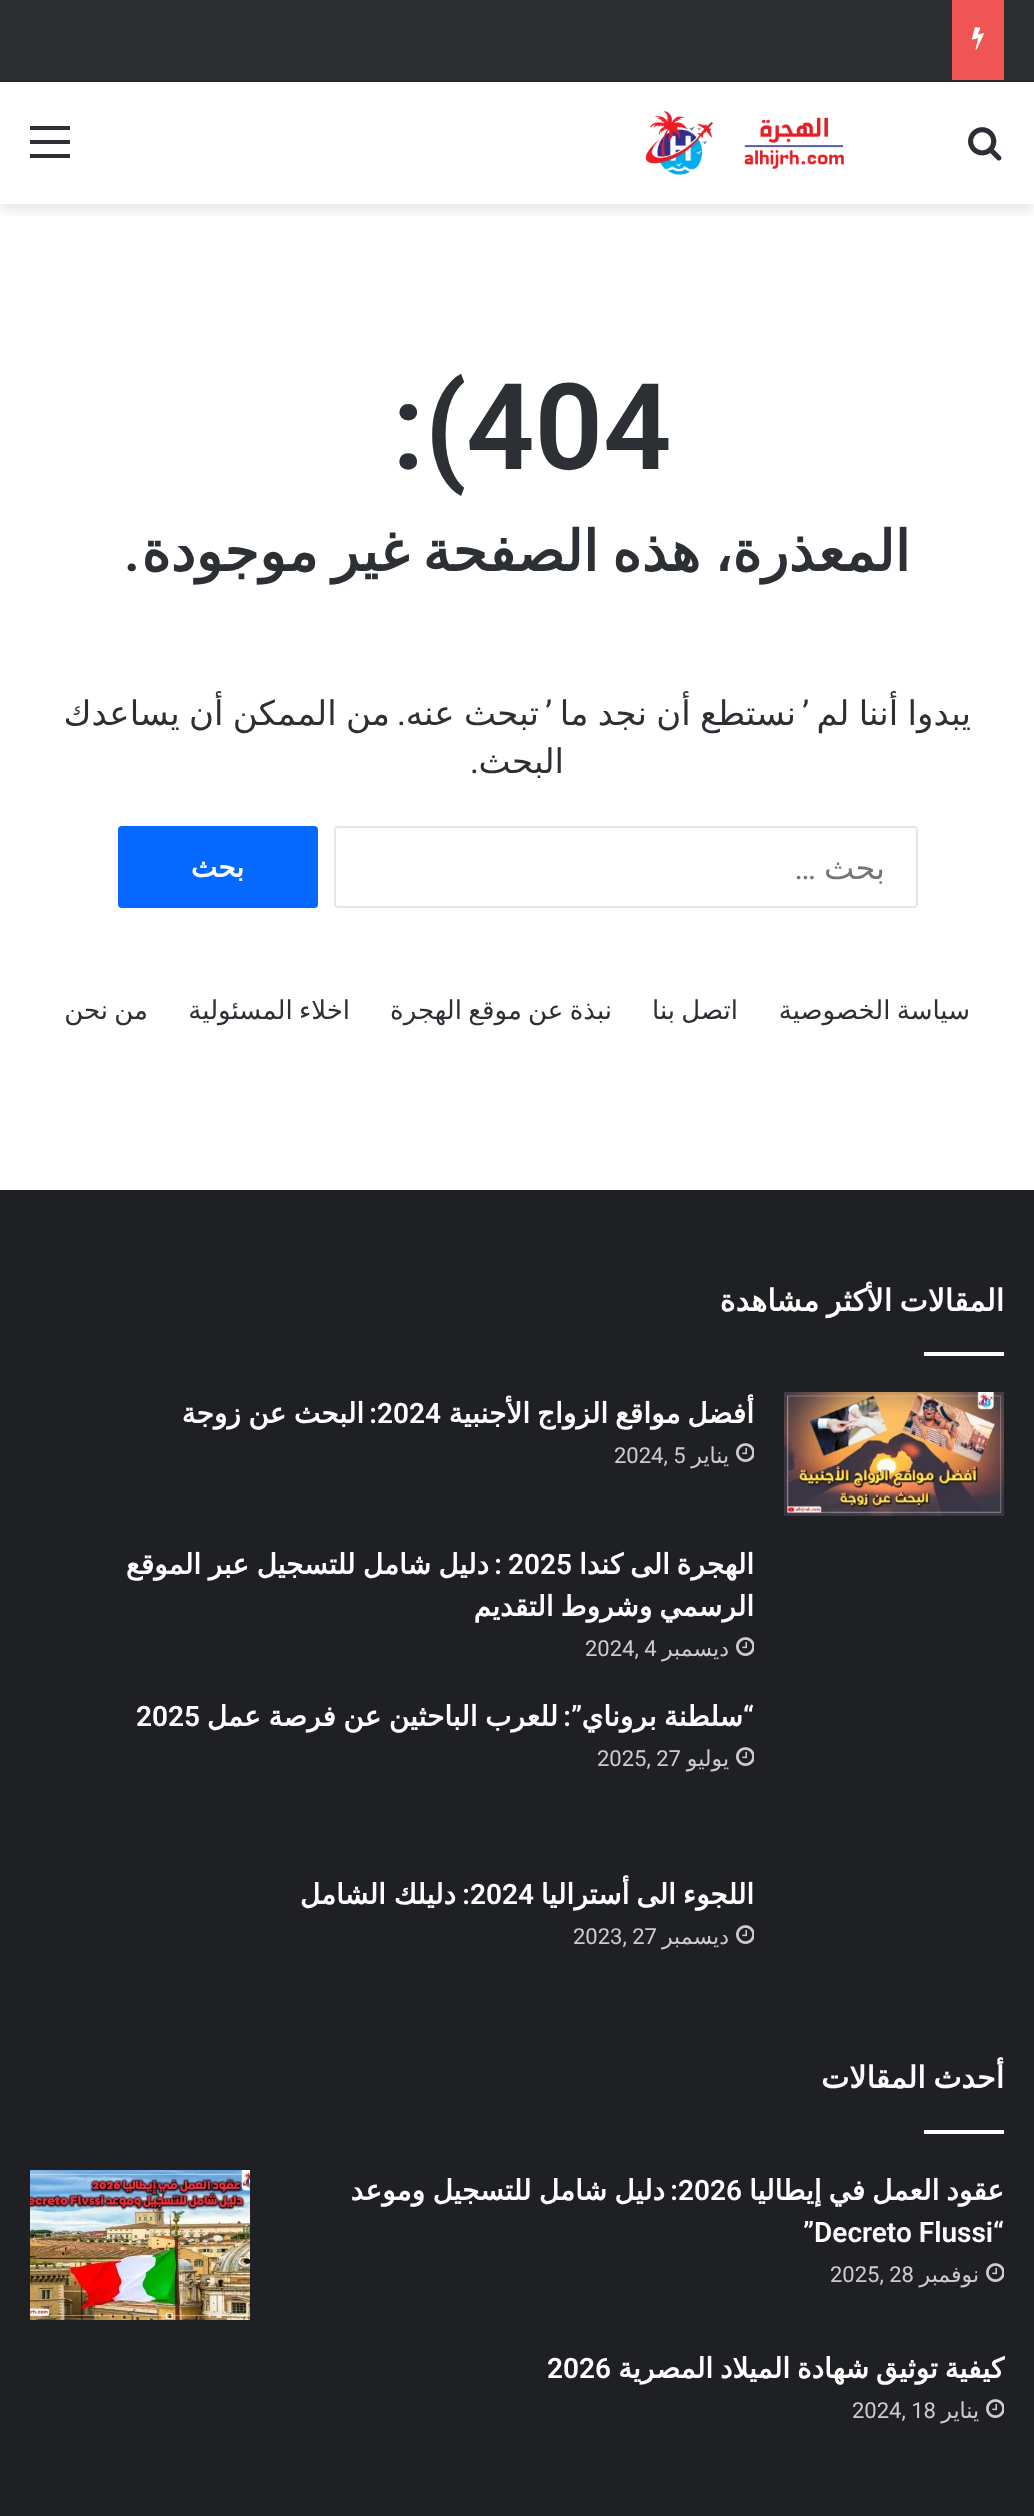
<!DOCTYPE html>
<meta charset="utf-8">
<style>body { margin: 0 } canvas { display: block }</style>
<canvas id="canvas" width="1034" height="2516"></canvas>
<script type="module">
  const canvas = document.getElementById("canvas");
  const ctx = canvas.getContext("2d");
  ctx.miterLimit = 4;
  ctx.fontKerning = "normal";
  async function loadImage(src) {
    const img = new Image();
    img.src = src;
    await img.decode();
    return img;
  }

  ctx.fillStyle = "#ffffff";
  ctx.fillRect(0, 0, 1034, 2516);
  ctx.save();
  ctx.beginPath();
  ctx.rect(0, 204, 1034, 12);
  ctx.clip();
  ctx.fillStyle = "rgba(0, 0, 0, 0.1)";
  ctx.filter = "blur(7px)";
  ctx.beginPath();
  ctx.rect(0, 88, 1034, 122);
  ctx.fill();
  ctx.filter = "none";
  ctx.restore();
  ctx.fillStyle = "#2c2e32";
  ctx.fillRect(0, 0, 1034, 80);
  ctx.fillStyle = "#28292d";
  ctx.fillRect(0, 80, 1034, 2);
  ctx.fillStyle = "#f05555";
  ctx.fillRect(952, 0, 52, 80);
  ctx.drawImage(await loadImage("img1.png"), 972, 27, 12, 23);
  ctx.drawImage(await loadImage("img2.png"), 968, 127, 34, 34);
  ctx.drawImage(await loadImage("img3.png"), 645, 110, 199, 65);
  ctx.fillStyle = "#2c2f34";
  ctx.fillRect(30, 140, 40, 4);
  ctx.fillRect(30, 126, 40, 4);
  ctx.fillRect(30, 154, 40, 4);
  ctx.font = "600 120px Roboto";
  ctx.fillText("404", 466, 469);
  ctx.fillText(":(", 392, 469);
  ctx.wordSpacing = "-4px";
  ctx.direction = "rtl";
  ctx.font = "bold 56px DejaVu Sans";
  ctx.fillText("المعذرة، هذه الصفحة غير موجودة", 910, 571);
  ctx.wordSpacing = "0px";
  ctx.font = "600 56px Roboto";
  ctx.fillText(".", 140, 571);
  ctx.wordSpacing = "-1.5px";
  ctx.font = "34px DejaVu Sans";
  ctx.fillText("يبدوا أننا لم", 971, 725);
  ctx.wordSpacing = "0px";
  ctx.font = "34px Roboto";
  ctx.fillText("’", 809, 725);
  ctx.wordSpacing = "-1.5px";
  ctx.font = "34px DejaVu Sans";
  ctx.fillText("نستطع أن نجد ما", 796, 725);
  ctx.wordSpacing = "0px";
  ctx.font = "34px Roboto";
  ctx.fillText("’", 552, 725);
  ctx.wordSpacing = "-1.5px";
  ctx.font = "34px DejaVu Sans";
  ctx.fillText("من الممكن أن يساعدك", 390, 725);
  ctx.fillText("تبحث عنه", 539, 725);
  ctx.wordSpacing = "0px";
  ctx.font = "34px Roboto";
  ctx.fillText(".", 406, 725);
  ctx.font = "34px DejaVu Sans";
  ctx.fillText("البحث", 564, 773);
  ctx.font = "34px Roboto";
  ctx.fillText(".", 479, 773);
  ctx.beginPath();
  ctx.roundRect(335, 827, 582, 80, 3);
  ctx.strokeStyle = "#e6e6e6";
  ctx.lineWidth = 2;
  ctx.stroke();
  ctx.font = "32px DejaVu Sans";
  ctx.fillStyle = "#757575";
  ctx.fillText("بحث", 885, 879);
  ctx.font = "32px Roboto";
  ctx.fillText("…", 816, 879);
  ctx.fillStyle = "#0669ff";
  ctx.beginPath();
  ctx.roundRect(118, 826, 200, 82, 4);
  ctx.fill();
  ctx.font = "bold 28px DejaVu Sans";
  ctx.fillStyle = "#ffffff";
  ctx.fillText("بحث", 244, 877);
  ctx.wordSpacing = "-2px";
  ctx.font = "26px DejaVu Sans";
  ctx.fillStyle = "#2c2f34";
  ctx.fillText("سياسة الخصوصية", 970, 1019);
  ctx.fillText("اتصل بنا", 738, 1019);
  ctx.fillText("نبذة عن موقع الهجرة", 612, 1019);
  ctx.fillText("اخلاء المسئولية", 350, 1019);
  ctx.fillText("من نحن", 148, 1019);
  ctx.fillStyle = "#1f2024";
  ctx.fillRect(0, 1190, 1034, 1326);
  ctx.font = "bold 30px DejaVu Sans";
  ctx.fillStyle = "#ffffff";
  ctx.fillText("المقالات الأكثر مشاهدة", 1004, 1311);
  ctx.fillRect(924, 1352, 80, 4);
  ctx.drawImage(await loadImage("img4.png"), 784, 1392, 220, 124);
  ctx.font = "bold 28px DejaVu Sans";
  ctx.fillText("أفضل مواقع الزواج الأجنبية", 754, 1423);
  ctx.wordSpacing = "0px";
  ctx.direction = "ltr";
  ctx.font = "600 28px Roboto";
  ctx.fillText("2024", 377, 1423);
  ctx.direction = "rtl";
  ctx.fillText(":", 377, 1423);
  ctx.wordSpacing = "-1.5px";
  ctx.font = "bold 28px DejaVu Sans";
  ctx.fillText("البحث عن زوجة", 364, 1423);
  ctx.drawImage(await loadImage("img5.png"), 736, 1443, 18, 19);
  ctx.wordSpacing = "0px";
  ctx.font = "22px DejaVu Sans";
  ctx.fillStyle = "#cccccc";
  ctx.fillText("يناير", 729, 1463);
  ctx.direction = "ltr";
  ctx.font = "22px Roboto";
  ctx.fillText("2024, 5", 614, 1463);
  ctx.wordSpacing = "-2px";
  ctx.direction = "rtl";
  ctx.font = "bold 28px DejaVu Sans";
  ctx.fillStyle = "#ffffff";
  ctx.fillText("الهجرة الى كندا", 754, 1574);
  ctx.wordSpacing = "0px";
  ctx.direction = "ltr";
  ctx.font = "600 28px Roboto";
  ctx.fillText("2025", 508, 1574);
  ctx.direction = "rtl";
  ctx.fillText(":", 502, 1574);
  ctx.wordSpacing = "-1.5px";
  ctx.font = "bold 28px DejaVu Sans";
  ctx.fillText("دليل شامل للتسجيل عبر الموقع", 489, 1574);
  ctx.wordSpacing = "-2px";
  ctx.fillText("الرسمي وشروط التقديم", 754, 1616);
  ctx.drawImage(await loadImage("img5.png"), 736, 1637, 18, 19);
  ctx.wordSpacing = "0px";
  ctx.font = "22px DejaVu Sans";
  ctx.fillStyle = "#cccccc";
  ctx.fillText("ديسمبر", 729, 1656);
  ctx.direction = "ltr";
  ctx.font = "22px Roboto";
  ctx.fillText("2024, 4", 585, 1656);
  ctx.direction = "rtl";
  ctx.font = "600 28px Roboto";
  ctx.fillStyle = "#ffffff";
  ctx.fillText("“", 754, 1726);
  ctx.wordSpacing = "-1.5px";
  ctx.font = "bold 28px DejaVu Sans";
  ctx.fillText("سلطنة بروناي", 743, 1726);
  ctx.wordSpacing = "0px";
  ctx.font = "600 28px Roboto";
  ctx.fillText("”:", 582, 1726);
  ctx.wordSpacing = "-1.5px";
  ctx.font = "bold 28px DejaVu Sans";
  ctx.fillText("للعرب الباحثين عن فرصة عمل", 558, 1726);
  ctx.wordSpacing = "0px";
  ctx.direction = "ltr";
  ctx.font = "600 28px Roboto";
  ctx.fillText("2025", 136, 1726);
  ctx.drawImage(await loadImage("img5.png"), 736, 1747, 18, 19);
  ctx.direction = "rtl";
  ctx.font = "22px DejaVu Sans";
  ctx.fillStyle = "#cccccc";
  ctx.fillText("يوليو", 729, 1766);
  ctx.direction = "ltr";
  ctx.font = "22px Roboto";
  ctx.fillText("2025, 27", 597, 1766);
  ctx.wordSpacing = "-2px";
  ctx.direction = "rtl";
  ctx.font = "bold 28px DejaVu Sans";
  ctx.fillStyle = "#ffffff";
  ctx.fillText("اللجوء الى أستراليا", 754, 1904);
  ctx.wordSpacing = "0px";
  ctx.direction = "ltr";
  ctx.font = "600 28px Roboto";
  ctx.fillText("2024", 470, 1904);
  ctx.direction = "rtl";
  ctx.fillText(":", 470, 1904);
  ctx.wordSpacing = "-1px";
  ctx.font = "bold 28px DejaVu Sans";
  ctx.fillText("دليلك الشامل", 456, 1904);
  ctx.drawImage(await loadImage("img5.png"), 736, 1925, 18, 19);
  ctx.wordSpacing = "0px";
  ctx.font = "22px DejaVu Sans";
  ctx.fillStyle = "#cccccc";
  ctx.fillText("ديسمبر", 729, 1944);
  ctx.direction = "ltr";
  ctx.font = "22px Roboto";
  ctx.fillText("2023, 27", 573, 1944);
  ctx.wordSpacing = "-2px";
  ctx.direction = "rtl";
  ctx.font = "bold 30px DejaVu Sans";
  ctx.fillStyle = "#ffffff";
  ctx.fillText("أحدث المقالات", 1004, 2088);
  ctx.fillRect(924, 2130, 80, 4);
  ctx.font = "bold 28px DejaVu Sans";
  ctx.fillText("عقود العمل في إيطاليا", 1004, 2200);
  ctx.wordSpacing = "0px";
  ctx.direction = "ltr";
  ctx.font = "600 28px Roboto";
  ctx.fillText("2026", 678, 2200);
  ctx.direction = "rtl";
  ctx.fillText(":", 678, 2200);
  ctx.wordSpacing = "-1.5px";
  ctx.font = "bold 28px DejaVu Sans";
  ctx.fillText("دليل شامل للتسجيل وموعد", 665, 2200);
  ctx.wordSpacing = "0px";
  ctx.direction = "ltr";
  ctx.font = "600 28px Roboto";
  ctx.fillText("”Decreto Flussi“", 803, 2242);
  ctx.drawImage(await loadImage("img5.png"), 986, 2263, 18, 19);
  ctx.direction = "rtl";
  ctx.font = "22px DejaVu Sans";
  ctx.fillStyle = "#cccccc";
  ctx.fillText("نوفمبر", 979, 2282);
  ctx.direction = "ltr";
  ctx.font = "22px Roboto";
  ctx.fillText("2025, 28", 830, 2282);
  ctx.drawImage(await loadImage("img6.png"), 30, 2170, 220, 150);
  ctx.wordSpacing = "-2px";
  ctx.direction = "rtl";
  ctx.font = "bold 28px DejaVu Sans";
  ctx.fillStyle = "#ffffff";
  ctx.fillText("كيفية توثيق شهادة الميلاد المصرية", 1004, 2378);
  ctx.wordSpacing = "0px";
  ctx.direction = "ltr";
  ctx.font = "600 28px Roboto";
  ctx.fillText("2026", 547, 2378);
  ctx.drawImage(await loadImage("img5.png"), 986, 2399, 18, 19);
  ctx.direction = "rtl";
  ctx.font = "22px DejaVu Sans";
  ctx.fillStyle = "#cccccc";
  ctx.fillText("يناير", 979, 2418);
  ctx.direction = "ltr";
  ctx.font = "22px Roboto";
  ctx.fillText("2024, 18", 852, 2418);
</script>
